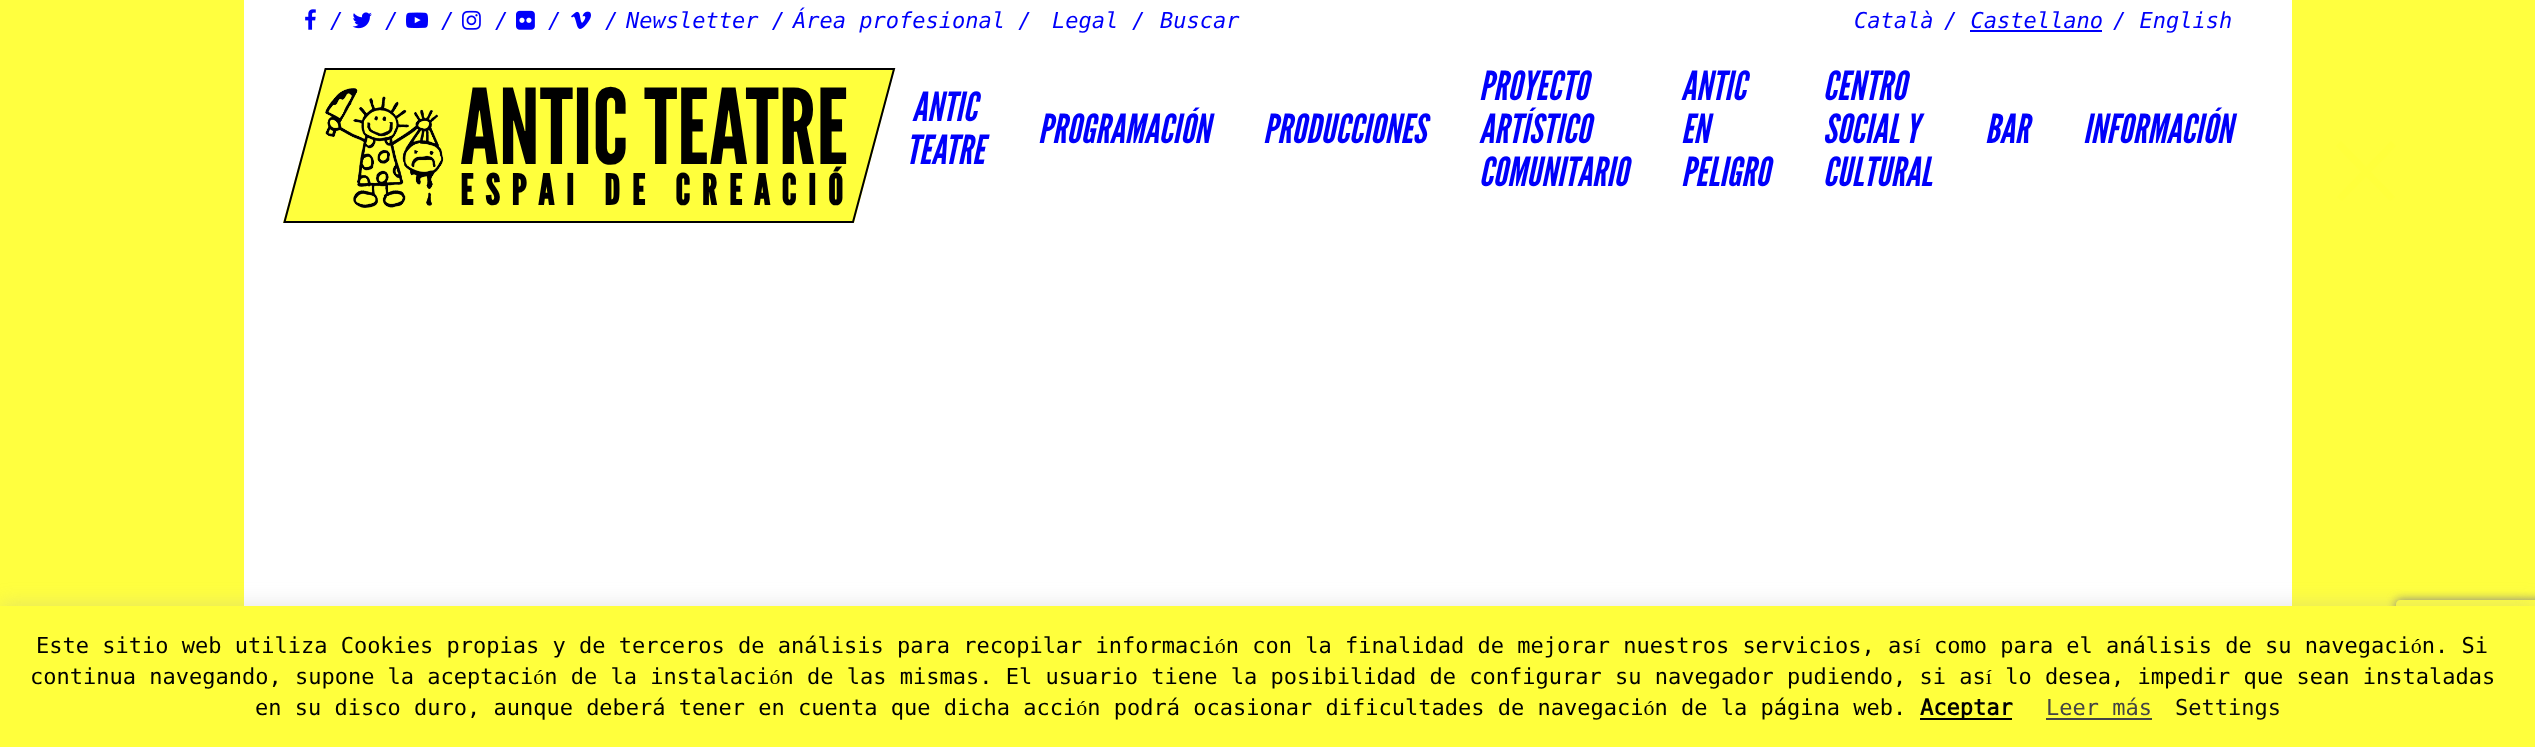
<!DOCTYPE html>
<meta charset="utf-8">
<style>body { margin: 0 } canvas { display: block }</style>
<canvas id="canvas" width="2535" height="747"></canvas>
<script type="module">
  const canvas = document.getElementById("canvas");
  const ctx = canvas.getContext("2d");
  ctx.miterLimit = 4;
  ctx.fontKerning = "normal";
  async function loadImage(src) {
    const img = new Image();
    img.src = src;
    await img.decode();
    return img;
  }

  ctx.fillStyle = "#ffff3f";
  ctx.fillRect(0, 0, 2535, 747);
  ctx.fillStyle = "#ffffff";
  ctx.fillRect(244, 0, 2048, 606);
  ctx.drawImage(await loadImage("img1.png"), 305, 9, 11, 21);
  ctx.font = "italic 22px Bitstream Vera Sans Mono";
  ctx.fillStyle = "#0000fa";
  ctx.fillText("/", 330, 28);
  ctx.drawImage(await loadImage("img2.png"), 352, 12, 20, 17);
  ctx.fillText("/", 385, 28);
  ctx.drawImage(await loadImage("img3.png"), 406, 12, 22, 17);
  ctx.fillText("/", 441, 28);
  ctx.drawImage(await loadImage("img4.png"), 462, 10, 19, 20);
  ctx.fillText("/", 495, 28);
  ctx.drawImage(await loadImage("img5.png"), 516, 10, 19, 20);
  ctx.fillText("/", 548, 28);
  ctx.drawImage(await loadImage("img6.png"), 571, 11, 20, 18);
  ctx.fillText("/", 605, 28);
  ctx.fillText("Newsletter /", 626, 28);
  ctx.fillText("Área profesional /", 793, 28);
  ctx.fillText("Legal", 1052, 28);
  ctx.fillText("/", 1132, 28);
  ctx.fillText("Buscar", 1160, 28);
  ctx.fillText("Català", 1854, 28);
  ctx.fillText("/ Castellano", 1944, 28);
  ctx.fillRect(1970, 30, 132, 2);
  ctx.fillText("/ English", 2113, 28);
  ctx.fillStyle = "#ffff3c";
  ctx.beginPath();
  ctx.moveTo(325, 68);
  ctx.lineTo(895, 68);
  ctx.lineTo(854, 223);
  ctx.lineTo(283, 223);
  ctx.closePath();
  ctx.fill();
  ctx.beginPath();
  ctx.moveTo(325.5, 69);
  ctx.lineTo(894, 69);
  ctx.lineTo(853, 222);
  ctx.lineTo(284.5, 222);
  ctx.closePath();
  ctx.strokeStyle = "#000000";
  ctx.lineWidth = 2;
  ctx.stroke();
  ctx.drawImage(await loadImage("img7.png"), 325, 88, 119, 120);
  ctx.font = "104px League Gothic";
  ctx.fillStyle = "#000000";
  ctx.fillText("ANTIC TEATRE", 460, 164);
  ctx.letterSpacing = "12px";
  ctx.font = "bold 42px League Gothic";
  ctx.fillText("ESPAI DE CREACIÓ", 460, 205);
  ctx.letterSpacing = "0px";
  ctx.font = "italic 40px League Gothic";
  ctx.fillStyle = "#0000fa";
  ctx.fillText("ANTIC", 912, 121);
  ctx.fillText("TEATRE", 906, 164);
  ctx.fillText("PROGRAMACIÓN", 1038, 143);
  ctx.fillText("PRODUCCIONES", 1263, 143);
  ctx.fillText("PROYECTO", 1479, 100);
  ctx.fillText("ARTÍSTICO", 1479, 143);
  ctx.fillText("COMUNITARIO", 1479, 186);
  ctx.fillText("ANTIC", 1681, 100);
  ctx.fillText("EN", 1681, 143);
  ctx.fillText("PELIGRO", 1681, 186);
  ctx.fillText("CENTRO", 1823, 100);
  ctx.fillText("SOCIAL Y", 1823, 143);
  ctx.fillText("CULTURAL", 1823, 186);
  ctx.fillText("BAR", 1985, 143);
  ctx.fillText("INFORMACIÓN", 2083, 143);
  ctx.fillStyle = "#ffff3c";
  ctx.beginPath();
  ctx.moveTo(2341, 141);
  ctx.lineTo(2395, 197);
  ctx.lineTo(2390, 201);
  ctx.lineTo(2336, 146);
  ctx.closePath();
  ctx.fill();
  ctx.beginPath();
  ctx.moveTo(2391, 141);
  ctx.lineTo(2396, 146);
  ctx.lineTo(2342, 201);
  ctx.lineTo(2337, 197);
  ctx.closePath();
  ctx.fill();
  ctx.save();
  ctx.beginPath();
  ctx.moveTo(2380, 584);
  ctx.lineTo(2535, 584);
  ctx.lineTo(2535, 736);
  ctx.lineTo(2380, 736);
  ctx.closePath();
  ctx.moveTo(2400, 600);
  ctx.lineTo(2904, 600);
  ctx.bezierCurveTo(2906, 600, 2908, 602, 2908, 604);
  ctx.lineTo(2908, 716);
  ctx.bezierCurveTo(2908, 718, 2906, 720, 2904, 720);
  ctx.lineTo(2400, 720);
  ctx.bezierCurveTo(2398, 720, 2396, 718, 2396, 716);
  ctx.lineTo(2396, 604);
  ctx.bezierCurveTo(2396, 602, 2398, 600, 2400, 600);
  ctx.closePath();
  ctx.clip("evenodd");
  ctx.fillStyle = "#808080";
  ctx.filter = "blur(5px)";
  ctx.beginPath();
  ctx.roundRect(2396, 600, 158, 120, 4);
  ctx.fill();
  ctx.filter = "none";
  ctx.restore();
  ctx.fillStyle = "rgba(172, 171, 171, 0.3)";
  ctx.filter = "blur(10px)";
  ctx.beginPath();
  ctx.rect(0, 604, 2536, 142);
  ctx.fill();
  ctx.filter = "none";
  ctx.fillStyle = "#ffff3c";
  ctx.fillRect(0, 606, 2535, 141);
  ctx.font = "22px Bitstream Vera Sans Mono";
  ctx.fillStyle = "#000000";
  ctx.fillText("Este sitio web utiliza Cookies propias y de terceros de análisis para recopilar información con la finalidad de mejorar nuestros servicios, así como para el análisis de su navegación. Si", 36, 653);
  ctx.fillText("continua navegando, supone la aceptación de la instalación de las mismas. El usuario tiene la posibilidad de configurar su navegador pudiendo, si así lo desea, impedir que sean instaladas", 30, 684);
  ctx.fillText("en su disco duro, aunque deberá tener en cuenta que dicha acción podrá ocasionar dificultades de navegación de la página web.", 255, 715);
  ctx.fillRect(1920, 718, 92, 2);
  ctx.font = "bold 22px Bitstream Vera Sans Mono";
  ctx.fillText("Aceptar", 1920, 715);
  ctx.font = "22px Bitstream Vera Sans Mono";
  ctx.fillStyle = "#444444";
  ctx.fillText("Leer más", 2046, 715);
  ctx.fillRect(2046, 718, 106, 2);
  ctx.fillStyle = "#0a0a0a";
  ctx.fillText("Settings", 2175, 715);
</script>
